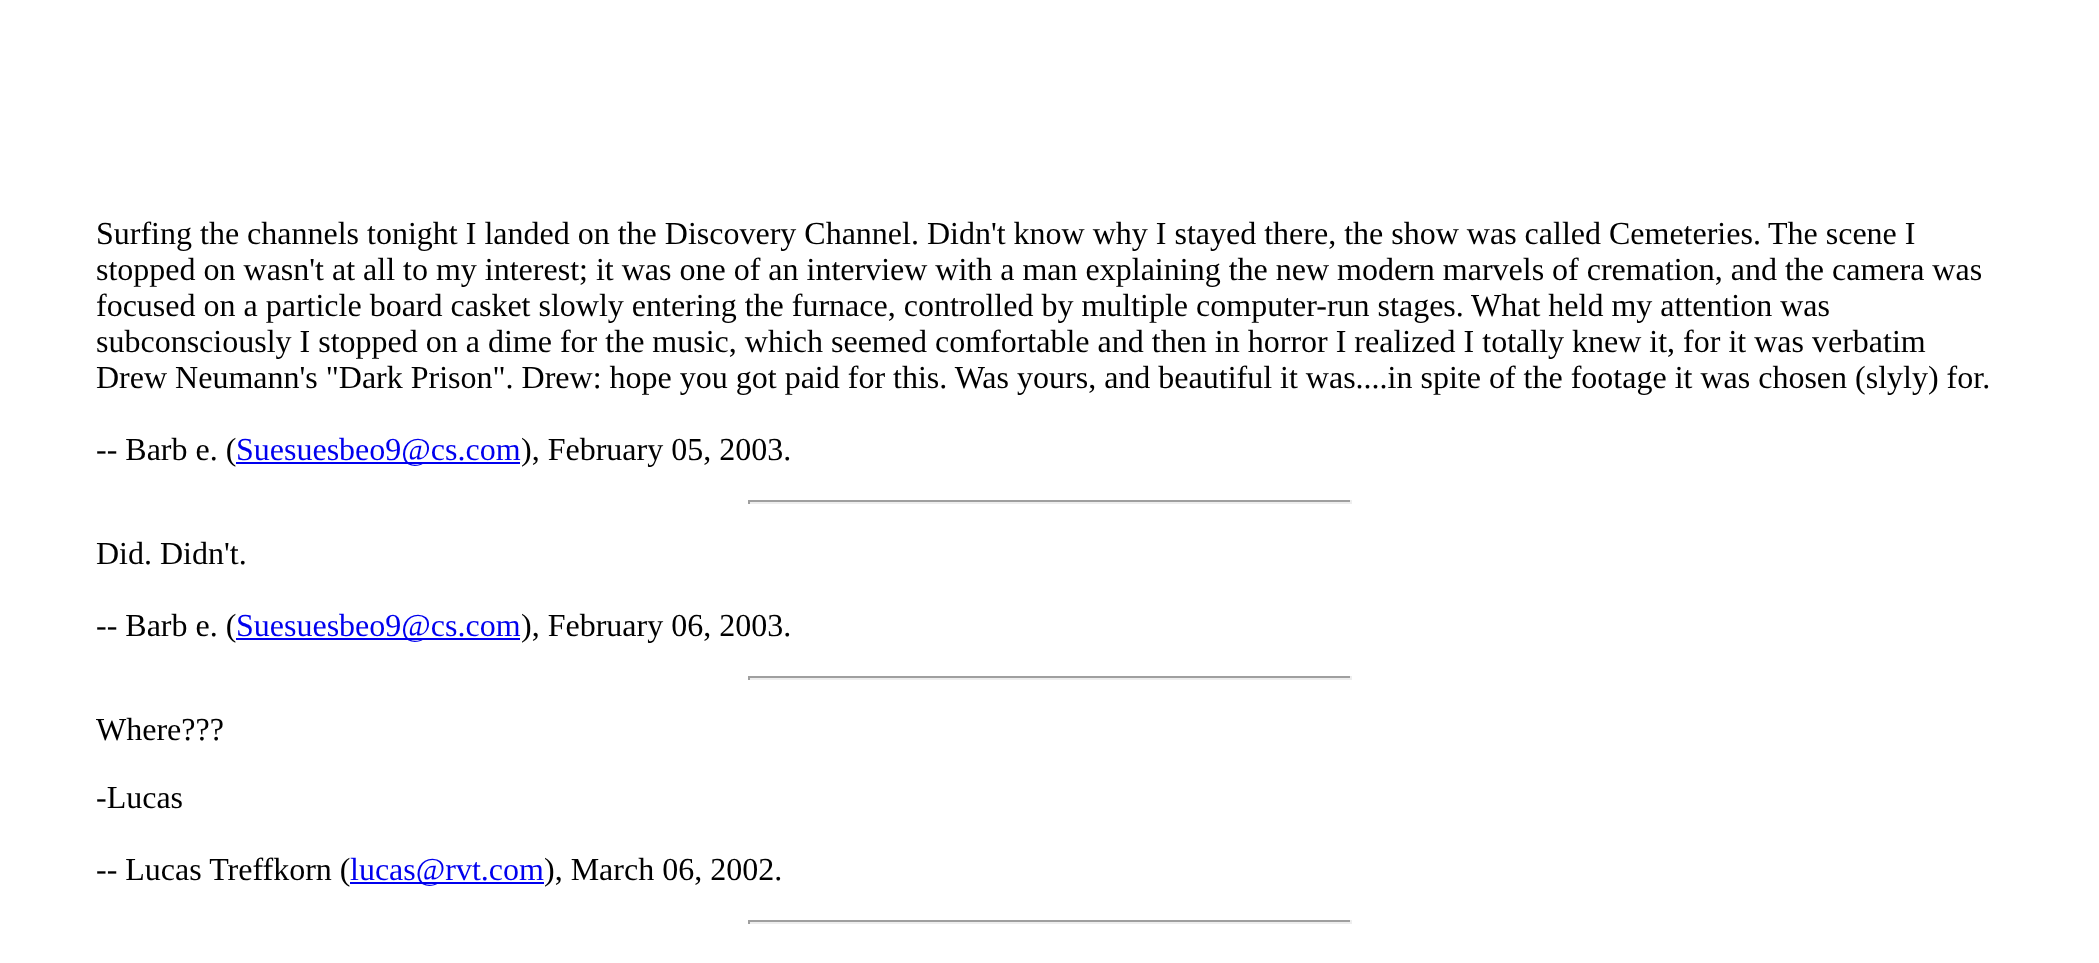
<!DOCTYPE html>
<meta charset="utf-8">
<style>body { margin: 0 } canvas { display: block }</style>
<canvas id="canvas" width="2099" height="963"></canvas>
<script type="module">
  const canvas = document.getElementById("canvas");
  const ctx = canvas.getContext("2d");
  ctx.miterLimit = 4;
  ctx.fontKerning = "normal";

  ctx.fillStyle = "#ffffff";
  ctx.fillRect(0, 0, 2099, 963);
  ctx.font = "32px Liberation Serif";
  ctx.fillStyle = "#000000";
  ctx.fillText("Surfing the channels tonight I landed on the Discovery Channel. Didn't know why I stayed there, the show was called Cemeteries.", 96, 244);
  ctx.fillText("The scene I", 1768, 244);
  ctx.fillText("stopped on wasn't at all to my interest; it was one of an interview with a man explaining the new modern marvels of cremation, and the camera was", 96, 280);
  ctx.fillText("focused on a particle board casket slowly entering the furnace, controlled by multiple computer-run stages.", 96, 316);
  ctx.fillText("What held my attention was", 1471, 316);
  ctx.fillText("subconsciously I stopped on a dime for the music, which seemed comfortable and then in horror I realized I totally knew it, for it was verbatim", 96, 352);
  ctx.fillText("Drew Neumann's \"Dark Prison\". Drew: hope you got paid for this. Was yours, and beautiful it was....in spite of the footage it was chosen (slyly) for.", 96, 388);
  ctx.fillText("-- Barb e. (", 96, 460);
  ctx.fillStyle = "#0000ee";
  ctx.fillRect(236, 462, 284, 2);
  ctx.fillText("Suesuesbeo9@cs.com", 236, 460);
  ctx.fillStyle = "#000000";
  ctx.fillText("), February 05, 2003.", 521, 460);
  ctx.fillStyle = "#9f9f9f";
  ctx.fillRect(748, 500, 604, 2);
  ctx.fillStyle = "#eeeeee";
  ctx.fillRect(1350, 500, 2, 4);
  ctx.fillRect(748, 502, 604, 2);
  ctx.fillStyle = "#9f9f9f";
  ctx.fillRect(748, 500, 2, 4);
  ctx.fillStyle = "#000000";
  ctx.fillText("Did. Didn't.", 96, 564);
  ctx.fillText("-- Barb e. (", 96, 636);
  ctx.fillStyle = "#0000ee";
  ctx.fillRect(236, 638, 284, 2);
  ctx.fillText("Suesuesbeo9@cs.com", 236, 636);
  ctx.fillStyle = "#000000";
  ctx.fillText("), February 06, 2003.", 521, 636);
  ctx.fillStyle = "#9f9f9f";
  ctx.fillRect(748, 676, 604, 2);
  ctx.fillStyle = "#eeeeee";
  ctx.fillRect(1350, 676, 2, 4);
  ctx.fillRect(748, 678, 604, 2);
  ctx.fillStyle = "#9f9f9f";
  ctx.fillRect(748, 676, 2, 4);
  ctx.fillStyle = "#000000";
  ctx.fillText("Where???", 96, 740);
  ctx.fillText("-Lucas", 96, 808);
  ctx.fillText("-- Lucas Treffkorn (", 96, 880);
  ctx.fillStyle = "#0000ee";
  ctx.fillRect(350, 882, 194, 2);
  ctx.fillText("lucas@rvt.com", 350, 880);
  ctx.fillStyle = "#000000";
  ctx.fillText("), March 06, 2002.", 544, 880);
  ctx.fillStyle = "#9f9f9f";
  ctx.fillRect(748, 920, 604, 2);
  ctx.fillStyle = "#eeeeee";
  ctx.fillRect(1350, 920, 2, 4);
  ctx.fillRect(748, 922, 604, 2);
  ctx.fillStyle = "#9f9f9f";
  ctx.fillRect(748, 920, 2, 4);
</script>
